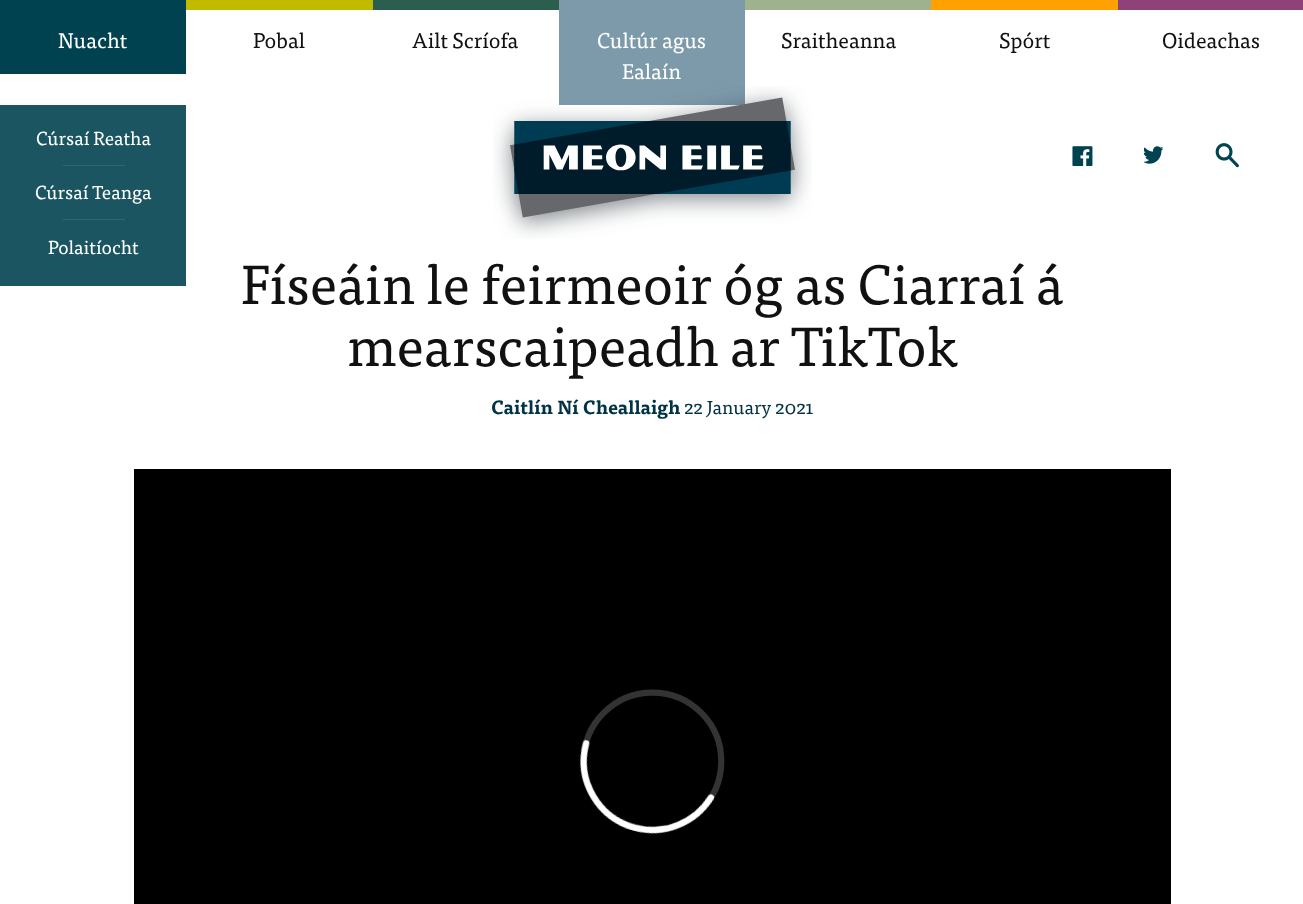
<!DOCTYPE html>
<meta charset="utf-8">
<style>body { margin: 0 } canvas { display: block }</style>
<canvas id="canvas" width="1303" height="904"></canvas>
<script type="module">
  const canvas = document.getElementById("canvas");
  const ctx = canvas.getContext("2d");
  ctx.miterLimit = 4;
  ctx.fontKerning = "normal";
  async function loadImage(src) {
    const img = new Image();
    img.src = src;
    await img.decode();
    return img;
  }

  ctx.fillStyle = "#ffffff";
  ctx.fillRect(0, 0, 1303, 904);
  ctx.fillStyle = "#014250";
  ctx.fillRect(0, 0, 186, 74);
  ctx.font = "21.25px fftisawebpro";
  ctx.fillStyle = "#ffffff";
  ctx.fillText("Nuacht", 58, 48);
  ctx.fillStyle = "#1a5561";
  ctx.fillRect(0, 105, 186, 181);
  ctx.font = "18.75px fftisawebpro";
  ctx.fillStyle = "#ffffff";
  ctx.fillText("Cúrsaí Reatha", 36, 145);
  ctx.fillStyle = "#316671";
  ctx.fillRect(63, 165, 62, 1);
  ctx.fillStyle = "#ffffff";
  ctx.fillText("Cúrsaí Teanga", 35, 199);
  ctx.fillStyle = "#316671";
  ctx.fillRect(63, 219, 62, 1);
  ctx.fillStyle = "#ffffff";
  ctx.fillText("Polaitíocht", 48, 254);
  ctx.fillStyle = "#c1bb00";
  ctx.fillRect(186, 0, 187, 10);
  ctx.font = "21.25px fftisawebpro";
  ctx.fillStyle = "#111111";
  ctx.fillText("Pobal", 253, 48);
  ctx.fillStyle = "#2c5e4f";
  ctx.fillRect(373, 0, 186, 10);
  ctx.fillStyle = "#111111";
  ctx.fillText("Ailt Scríofa", 412, 48);
  ctx.fillStyle = "#7d9aaa";
  ctx.fillRect(559, 0, 186, 105);
  ctx.fillStyle = "#ffffff";
  ctx.fillText("Cultúr agus", 597, 48);
  ctx.fillText("Ealaín", 622, 79);
  ctx.fillStyle = "#9eb28f";
  ctx.fillRect(745, 0, 186, 10);
  ctx.fillStyle = "#111111";
  ctx.fillText("Sraitheanna", 781, 48);
  ctx.fillStyle = "#ffa100";
  ctx.fillRect(931, 0, 187, 10);
  ctx.fillStyle = "#111111";
  ctx.fillText("Spórt", 999, 48);
  ctx.fillStyle = "#8d4379";
  ctx.fillRect(1118, 0, 185, 10);
  ctx.fillStyle = "#111111";
  ctx.fillText("Oideachas", 1162, 48);
  ctx.drawImage(await loadImage("img1.png"), 493, 86, 319, 153);
  ctx.drawImage(await loadImage("img2.png"), 1072, 146, 21, 20);
  ctx.drawImage(await loadImage("img3.png"), 1144, 146, 19, 18);
  ctx.drawImage(await loadImage("img4.png"), 1215, 143, 24, 25);
  ctx.font = "55px fftisawebpro";
  ctx.fillText("Físeáin le feirmeoir óg as Ciarraí á", 241, 304);
  ctx.fillText("mearscaipeadh ar TikTok", 347, 366);
  ctx.font = "bold 18.75px fftisawebpro";
  ctx.fillStyle = "#003343";
  ctx.fillText("Caitlín Ní Cheallaigh", 491, 414);
  ctx.font = "18.75px fftisawebpro";
  ctx.fillText("22 January 2021", 684, 414);
  ctx.drawImage(await loadImage("img5.png"), 134, 469, 1037, 435);
</script>
